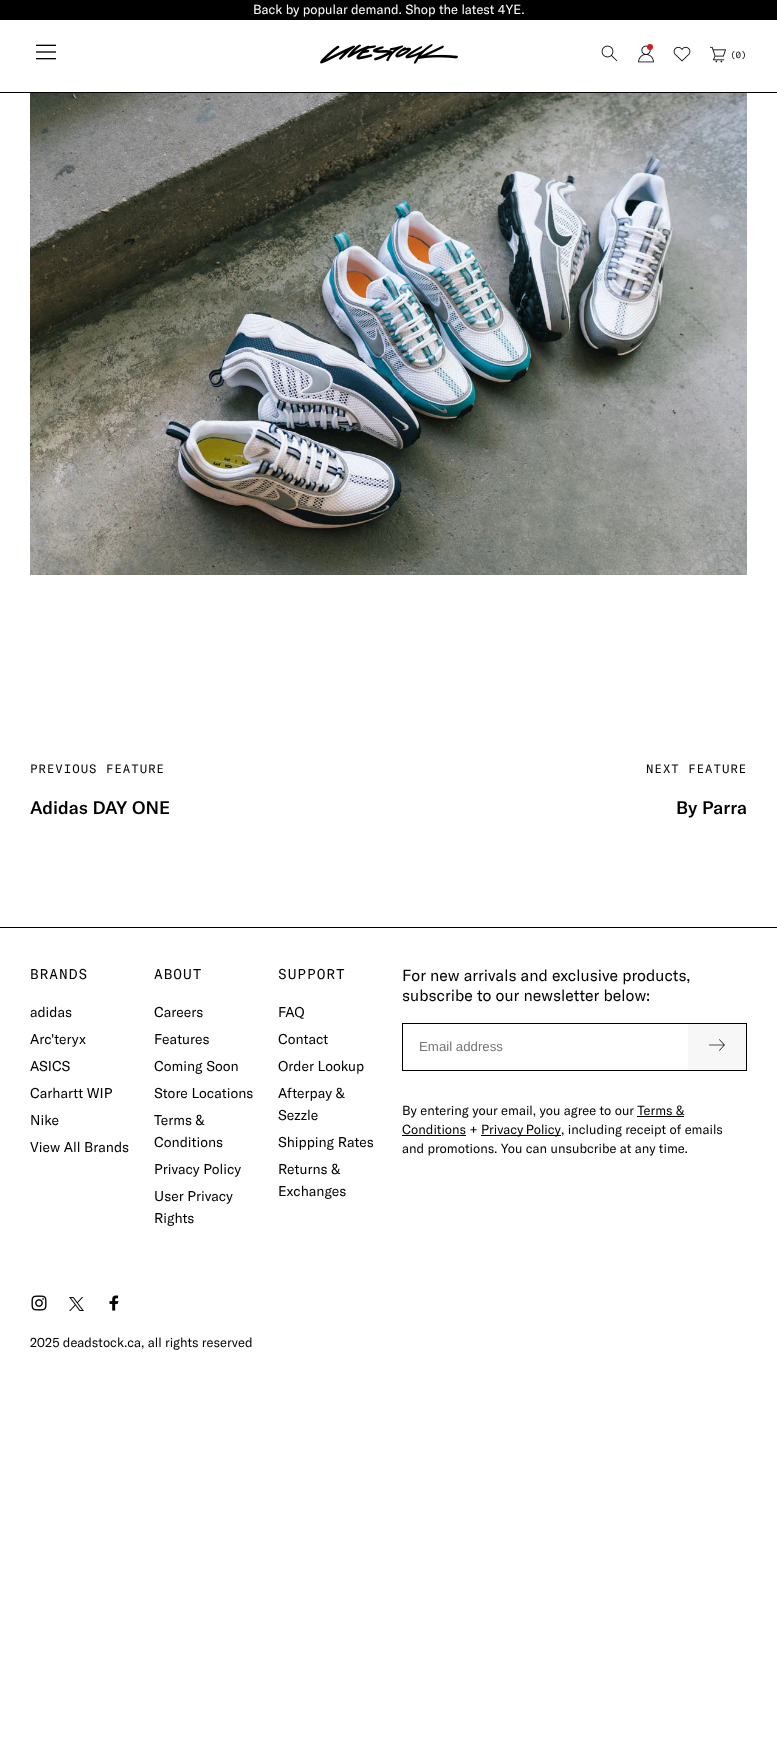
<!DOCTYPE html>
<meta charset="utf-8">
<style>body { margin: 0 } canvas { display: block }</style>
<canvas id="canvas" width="777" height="1764"></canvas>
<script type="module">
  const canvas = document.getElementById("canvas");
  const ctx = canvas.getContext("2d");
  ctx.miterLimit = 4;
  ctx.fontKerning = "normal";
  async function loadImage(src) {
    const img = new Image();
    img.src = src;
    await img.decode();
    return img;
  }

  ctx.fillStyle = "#ffffff";
  ctx.fillRect(0, 0, 777, 1764);
  ctx.fillStyle = "#000000";
  ctx.fillRect(0, 0, 777, 20);
  ctx.font = "13px GT America";
  ctx.fillStyle = "#ffffff";
  ctx.fillText("Back by popular demand. Shop the latest 4YE.", 253, 14);
  ctx.fillStyle = "#000000";
  ctx.fillRect(0, 92, 777, 1);
  ctx.drawImage(await loadImage("img1.png"), 36, 44, 20, 16);
  ctx.drawImage(await loadImage("img2.png"), 320, 44, 138, 20);
  ctx.drawImage(await loadImage("img3.png"), 601, 45, 17, 17);
  ctx.drawImage(await loadImage("img4.png"), 638, 45, 16, 18);
  ctx.fillStyle = "#dc181e";
  ctx.beginPath();
  ctx.arc(650, 47, 3, 0, Math.PI * 2);
  ctx.fill();
  ctx.drawImage(await loadImage("img5.png"), 673, 46, 18, 16);
  ctx.drawImage(await loadImage("img6.png"), 710, 46, 16, 17);
  ctx.font = "9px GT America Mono";
  ctx.fillStyle = "#000000";
  ctx.fillText("(0)", 730, 58);
  ctx.drawImage(await loadImage("img7.png"), 30, 93, 717, 482);
  ctx.letterSpacing = "1px";
  ctx.font = "12px GT America Mono";
  ctx.fillText("PREVIOUS FEATURE", 30, 773);
  ctx.letterSpacing = "0px";
  ctx.font = "500 18px GT America";
  ctx.fillText("Adidas DAY ONE", 30, 814);
  ctx.letterSpacing = "1px";
  ctx.font = "12px GT America Mono";
  ctx.fillText("NEXT FEATURE", 646, 773);
  ctx.letterSpacing = "0px";
  ctx.font = "500 18px GT America";
  ctx.fillText("By Parra", 676, 814);
  ctx.fillRect(0, 927, 777, 1);
  ctx.letterSpacing = "1px";
  ctx.font = "14px GT America Mono";
  ctx.fillText("BRANDS", 30, 979);
  ctx.letterSpacing = "0px";
  ctx.font = "14px GT America";
  ctx.fillText("adidas", 30, 1017);
  ctx.fillText("Arc'teryx", 30, 1044);
  ctx.fillText("ASICS", 30, 1071);
  ctx.fillText("Carhartt WIP", 30, 1098);
  ctx.fillText("Nike", 30, 1125);
  ctx.fillText("View All Brands", 30, 1152);
  ctx.letterSpacing = "1px";
  ctx.font = "14px GT America Mono";
  ctx.fillText("ABOUT", 154, 979);
  ctx.letterSpacing = "0px";
  ctx.font = "14px GT America";
  ctx.fillText("Careers", 154, 1017);
  ctx.fillText("Features", 154, 1044);
  ctx.fillText("Coming Soon", 154, 1071);
  ctx.fillText("Store Locations", 154, 1098);
  ctx.fillText("Terms &", 154, 1125);
  ctx.fillText("Conditions", 154, 1147);
  ctx.fillText("Privacy Policy", 154, 1174);
  ctx.fillText("User Privacy", 154, 1201);
  ctx.fillText("Rights", 154, 1223);
  ctx.letterSpacing = "1px";
  ctx.font = "14px GT America Mono";
  ctx.fillText("SUPPORT", 278, 979);
  ctx.letterSpacing = "0px";
  ctx.font = "14px GT America";
  ctx.fillText("FAQ", 278, 1017);
  ctx.fillText("Contact", 278, 1044);
  ctx.fillText("Order Lookup", 278, 1071);
  ctx.fillText("Afterpay &", 278, 1098);
  ctx.fillText("Sezzle", 278, 1120);
  ctx.fillText("Shipping Rates", 278, 1147);
  ctx.fillText("Returns &", 278, 1174);
  ctx.fillText("Exchanges", 278, 1196);
  ctx.font = "16px GT America";
  ctx.fillText("For new arrivals and exclusive products,", 402, 981);
  ctx.fillText("subscribe to our newsletter below:", 402, 1001);
  ctx.strokeStyle = "#000000";
  ctx.strokeRect(402.5, 1023.5, 344, 47);
  ctx.font = "13.25px Liberation Sans";
  ctx.fillStyle = "#757575";
  ctx.fillText("Email address", 419, 1051);
  ctx.fillStyle = "#f7f7f7";
  ctx.fillRect(688, 1024, 58, 46);
  ctx.drawImage(await loadImage("img8.png"), 709, 1039, 16, 12);
  ctx.font = "13px GT America";
  ctx.fillStyle = "#000000";
  ctx.fillText("By entering your email, you agree to our Terms &", 402, 1115);
  ctx.fillText("Conditions +", 402, 1134);
  ctx.fillRect(637, 1116, 47, 1);
  ctx.fillRect(402, 1135, 64, 1);
  ctx.fillRect(481, 1135, 80, 1);
  ctx.wordSpacing = "-1px";
  ctx.fillText("Privacy Policy", 481, 1134);
  ctx.wordSpacing = "0px";
  ctx.fillText(", including receipt of emails", 561, 1134);
  ctx.fillText("and promotions. You can unsubcribe at any time.", 402, 1153);
  ctx.drawImage(await loadImage("img9.png"), 31, 1295, 16, 16);
  ctx.drawImage(await loadImage("img10.png"), 69, 1297, 15, 14);
  ctx.drawImage(await loadImage("img11.png"), 109, 1295, 10, 16);
  ctx.fillText("2025 deadstock.ca, all rights reserved", 30, 1347);
</script>
